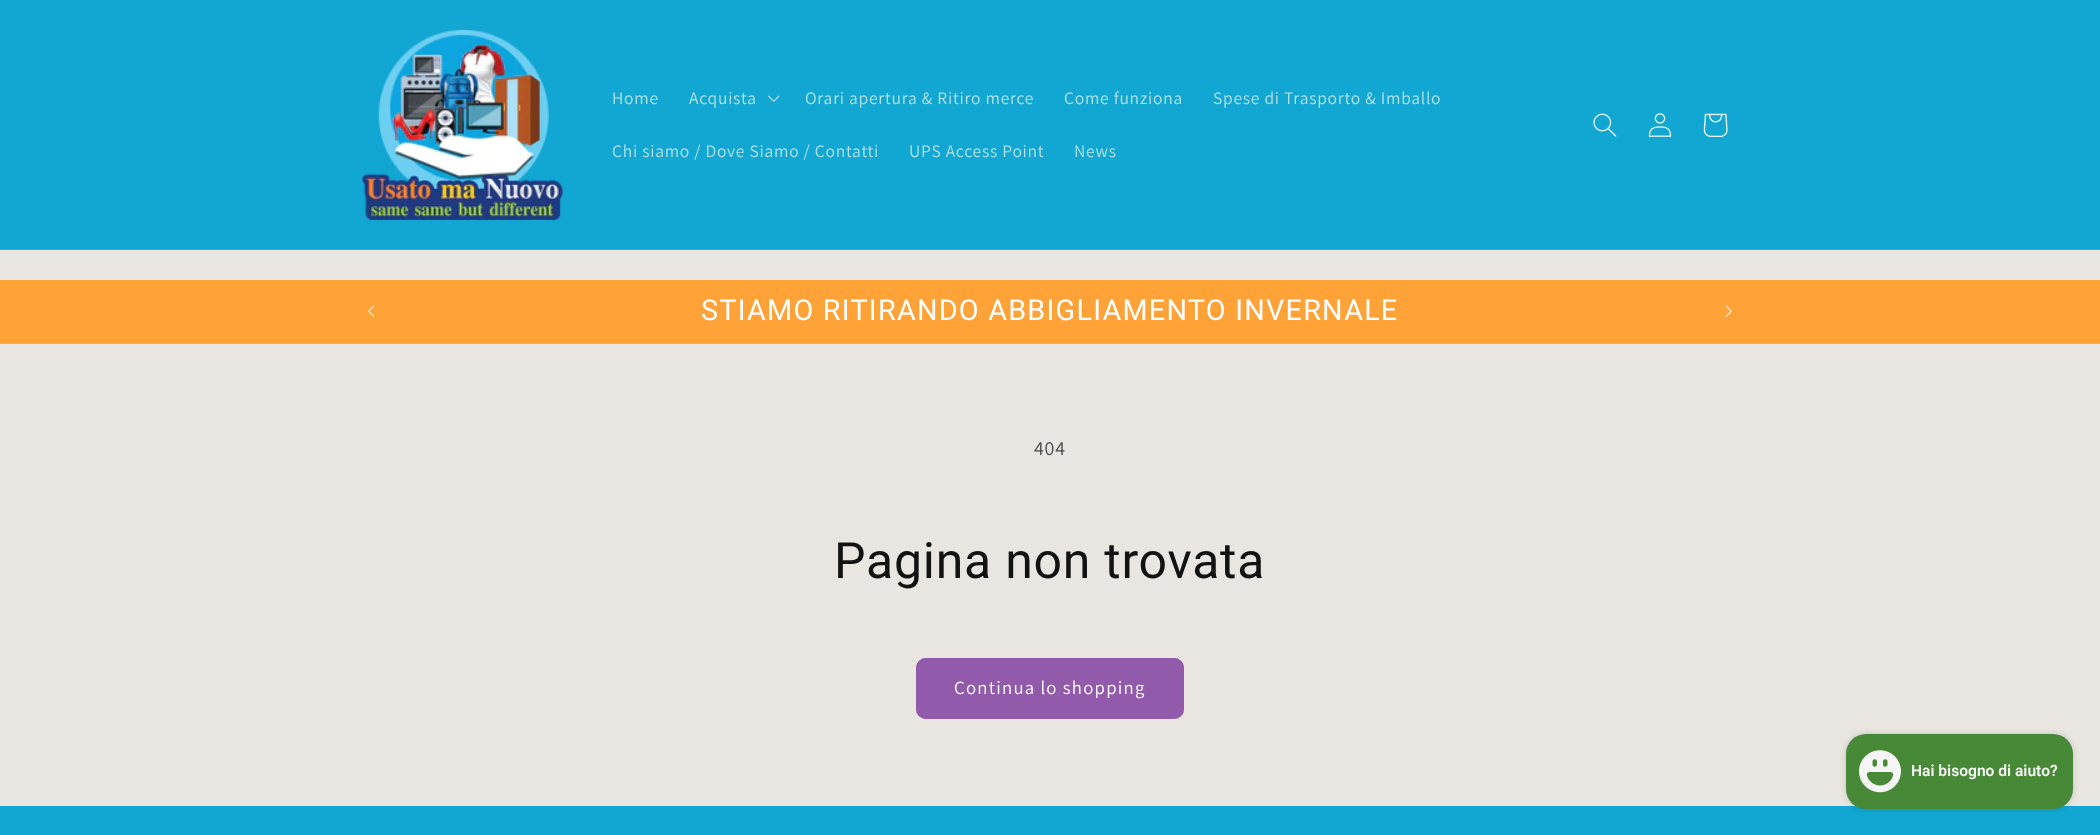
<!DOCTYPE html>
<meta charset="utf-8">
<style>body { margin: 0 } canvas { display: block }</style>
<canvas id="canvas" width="2100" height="835"></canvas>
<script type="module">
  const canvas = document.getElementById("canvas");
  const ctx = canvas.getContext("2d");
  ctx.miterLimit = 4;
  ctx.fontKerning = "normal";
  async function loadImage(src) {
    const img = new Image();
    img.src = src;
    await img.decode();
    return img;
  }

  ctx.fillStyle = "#e9e5e1";
  ctx.fillRect(0, 0, 2100, 835);
  ctx.fillStyle = "#12a7d2";
  ctx.fillRect(0, 0, 2100, 249);
  ctx.fillStyle = "#23add4";
  ctx.fillRect(0, 249, 2100, 1);
  ctx.drawImage(await loadImage("img1.png"), 362, 30, 201, 190);
  ctx.letterSpacing = "0.75px";
  ctx.font = "17.5px Assistant";
  ctx.fillStyle = "#b3e1e1";
  ctx.fillText("Home", 612, 104);
  ctx.fillText("Acquista", 689, 104);
  ctx.drawImage(await loadImage("img2.png"), 768, 95, 12, 7);
  ctx.fillText("Orari apertura & Ritiro merce", 805, 104);
  ctx.fillText("Come funziona", 1064, 104);
  ctx.fillText("Spese di Trasporto & Imballo", 1213, 104);
  ctx.fillText("Chi siamo / Dove Siamo / Contatti", 612, 157);
  ctx.fillText("UPS Access Point", 909, 157);
  ctx.fillText("News", 1074, 157);
  ctx.drawImage(await loadImage("img3.png"), 1593, 113, 24, 24);
  ctx.drawImage(await loadImage("img4.png"), 1648, 113, 24, 24);
  ctx.drawImage(await loadImage("img5.png"), 1703, 113, 25, 24);
  ctx.fillStyle = "#ffa237";
  ctx.fillRect(0, 280, 2100, 63);
  ctx.fillStyle = "#ffa947";
  ctx.fillRect(0, 343, 2100, 1);
  ctx.drawImage(await loadImage("img6.png"), 368, 305, 7, 12);
  ctx.letterSpacing = "1.25px";
  ctx.font = "28.75px Roboto";
  ctx.fillStyle = "#ffffff";
  ctx.fillText("STIAMO RITIRANDO ABBIGLIAMENTO INVERNALE", 701, 320);
  ctx.drawImage(await loadImage("img7.png"), 1725, 305, 7, 12);
  ctx.letterSpacing = "0.75px";
  ctx.font = "20px Assistant";
  ctx.fillStyle = "#484746";
  ctx.fillText("404", 1034, 455);
  ctx.font = "50px Roboto";
  ctx.fillStyle = "#121212";
  ctx.fillText("Pagina non trovata", 834, 578);
  ctx.fillStyle = "#915aab";
  ctx.beginPath();
  ctx.roundRect(916, 658, 268, 61, 10);
  ctx.fill();
  ctx.beginPath();
  ctx.roundRect(917.5, 659.5, 265, 58, 8.5);
  ctx.strokeStyle = "#915aab";
  ctx.lineWidth = 3;
  ctx.stroke();
  ctx.letterSpacing = "1.25px";
  ctx.font = "18.75px Assistant";
  ctx.fillStyle = "#ffffff";
  ctx.fillText("Continua lo shopping", 954, 694);
  ctx.fillStyle = "#12a7d2";
  ctx.fillRect(0, 806, 2100, 29);
  ctx.fillStyle = "rgba(0, 0, 0, 0.15)";
  ctx.filter = "blur(3px)";
  ctx.beginPath();
  ctx.roundRect(1846, 734, 227, 75, 20);
  ctx.fill();
  ctx.filter = "none";
  ctx.fillStyle = "#478936";
  ctx.beginPath();
  ctx.roundRect(1846, 734, 227, 75, 20);
  ctx.fill();
  ctx.drawImage(await loadImage("img8.png"), 1859, 750, 42, 43);
  ctx.letterSpacing = "0px";
  ctx.font = "600 15.6px Roboto";
  ctx.fillStyle = "#f5f5f5";
  ctx.fillText("Hai bisogno di aiuto?", 1911, 776);
</script>
